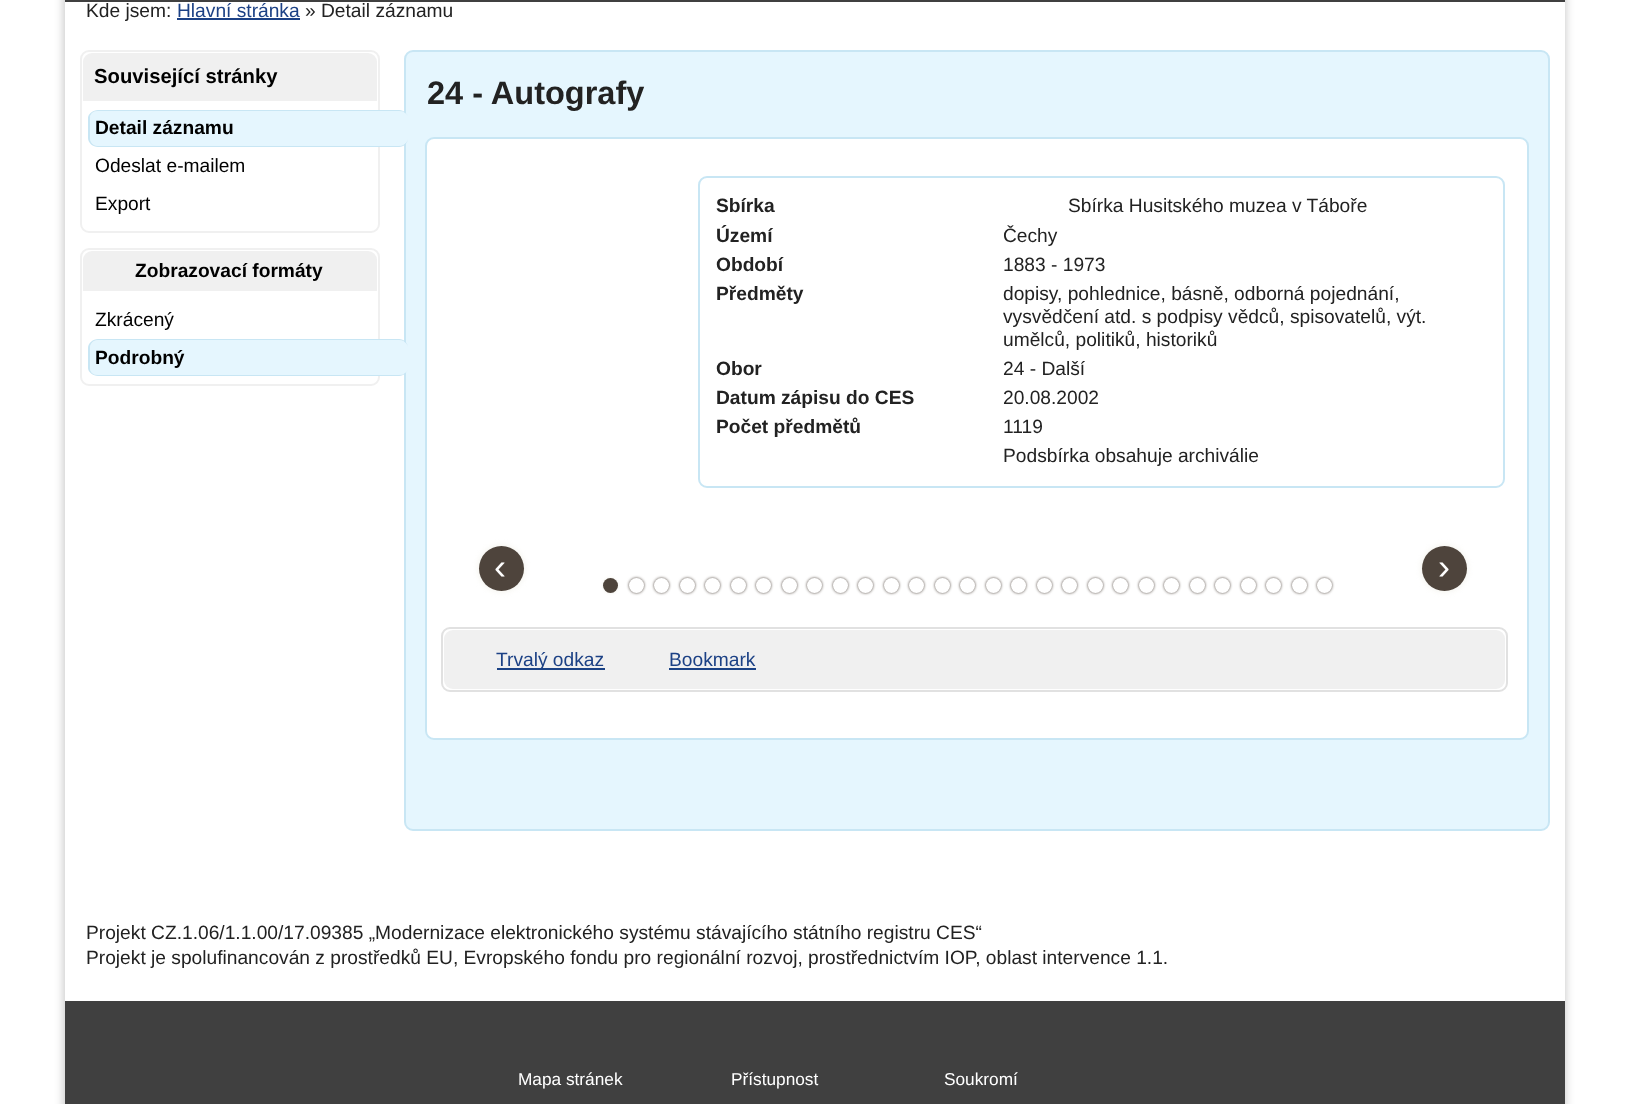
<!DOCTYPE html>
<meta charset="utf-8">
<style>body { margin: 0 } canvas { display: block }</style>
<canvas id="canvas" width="1627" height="1104"></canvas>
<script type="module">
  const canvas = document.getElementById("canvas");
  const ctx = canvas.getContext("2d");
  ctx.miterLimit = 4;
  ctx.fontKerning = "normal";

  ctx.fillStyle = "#ffffff";
  ctx.fillRect(0, 0, 1627, 1104);
  ctx.fillStyle = "rgba(0, 0, 0, 0.2)";
  ctx.filter = "blur(4.5px)";
  ctx.beginPath();
  ctx.rect(63, -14, 1503, 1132);
  ctx.fill();
  ctx.filter = "none";
  ctx.fillStyle = "#ffffff";
  ctx.fillRect(65, 2, 1500, 999);
  ctx.fillStyle = "#404040";
  ctx.fillRect(65, 0, 1500, 2);
  ctx.font = "19.2px Liberation Sans";
  ctx.fillStyle = "#222222";
  ctx.fillText("Kde jsem:", 86, 17);
  ctx.fillStyle = "#1c4185";
  ctx.fillText("Hlavní stránka", 177, 17);
  ctx.fillRect(177, 18, 123, 2);
  ctx.fillStyle = "#222222";
  ctx.fillText("» Detail záznamu", 305, 17);
  ctx.beginPath();
  ctx.roundRect(81, 51, 298, 181, 8);
  ctx.strokeStyle = "#f0f0f0";
  ctx.lineWidth = 2;
  ctx.stroke();
  ctx.fillStyle = "#f0f0f0";
  ctx.beginPath();
  ctx.roundRect(83, 53, 294, 48, [9, 9, 0, 0]);
  ctx.fill();
  ctx.font = "bold 20.25px Liberation Sans";
  ctx.fillStyle = "#000000";
  ctx.fillText("Související stránky", 94, 83);
  ctx.fillStyle = "#e5f6fe";
  ctx.beginPath();
  ctx.roundRect(405, 51, 1144, 779, 8);
  ctx.fill();
  ctx.strokeStyle = "#c8e6f4";
  ctx.stroke();
  ctx.beginPath();
  ctx.moveTo(98, 111);
  ctx.lineTo(399, 111);
  ctx.bezierCurveTo(404, 111, 408, 114, 408, 118);
  ctx.lineTo(408, 138);
  ctx.bezierCurveTo(408, 142, 404, 146, 399, 146);
  ctx.lineTo(98, 146);
  ctx.bezierCurveTo(93, 146, 90, 142, 90, 138);
  ctx.lineTo(90, 118);
  ctx.bezierCurveTo(90, 114, 93, 111, 98, 111);
  ctx.closePath();
  ctx.fill();
  ctx.fillStyle = "#c8e6f4";
  ctx.beginPath();
  ctx.moveTo(98, 110);
  ctx.lineTo(399, 110);
  ctx.bezierCurveTo(404, 110, 408, 114, 408, 118);
  ctx.lineTo(408, 138);
  ctx.bezierCurveTo(408, 143, 404, 147, 399, 147);
  ctx.lineTo(98, 147);
  ctx.bezierCurveTo(93, 147, 88, 143, 88, 138);
  ctx.lineTo(88, 118);
  ctx.bezierCurveTo(88, 114, 93, 110, 98, 110);
  ctx.closePath();
  ctx.moveTo(98, 111);
  ctx.lineTo(399, 111);
  ctx.bezierCurveTo(404, 111, 408, 114, 408, 118);
  ctx.lineTo(408, 138);
  ctx.bezierCurveTo(408, 142, 404, 146, 399, 146);
  ctx.lineTo(98, 146);
  ctx.bezierCurveTo(93, 146, 90, 142, 90, 138);
  ctx.lineTo(90, 118);
  ctx.bezierCurveTo(90, 114, 93, 111, 98, 111);
  ctx.closePath();
  ctx.fill("evenodd");
  ctx.font = "bold 19.2px Liberation Sans";
  ctx.fillStyle = "#000000";
  ctx.fillText("Detail záznamu", 95, 134);
  ctx.font = "19.2px Liberation Sans";
  ctx.fillText("Odeslat e-mailem", 95, 172);
  ctx.fillText("Export", 95, 210);
  ctx.beginPath();
  ctx.roundRect(81, 249, 298, 136, 8);
  ctx.strokeStyle = "#f0f0f0";
  ctx.stroke();
  ctx.fillStyle = "#f0f0f0";
  ctx.beginPath();
  ctx.roundRect(83, 251, 294, 40, [9, 9, 0, 0]);
  ctx.fill();
  ctx.font = "bold 19.2px Liberation Sans";
  ctx.fillStyle = "#000000";
  ctx.fillText("Zobrazovací formáty", 135, 277);
  ctx.font = "19.2px Liberation Sans";
  ctx.fillText("Zkrácený", 95, 326);
  ctx.fillStyle = "#e5f6fe";
  ctx.beginPath();
  ctx.moveTo(98, 340);
  ctx.lineTo(399, 340);
  ctx.bezierCurveTo(404, 340, 408, 344, 408, 348);
  ctx.lineTo(408, 368);
  ctx.bezierCurveTo(408, 372, 404, 375, 399, 375);
  ctx.lineTo(98, 375);
  ctx.bezierCurveTo(93, 375, 90, 372, 90, 368);
  ctx.lineTo(90, 348);
  ctx.bezierCurveTo(90, 344, 93, 340, 98, 340);
  ctx.closePath();
  ctx.fill();
  ctx.fillStyle = "#c8e6f4";
  ctx.beginPath();
  ctx.moveTo(98, 339);
  ctx.lineTo(399, 339);
  ctx.bezierCurveTo(404, 339, 408, 343, 408, 348);
  ctx.lineTo(408, 368);
  ctx.bezierCurveTo(408, 372, 404, 376, 399, 376);
  ctx.lineTo(98, 376);
  ctx.bezierCurveTo(93, 376, 88, 372, 88, 368);
  ctx.lineTo(88, 348);
  ctx.bezierCurveTo(88, 343, 93, 339, 98, 339);
  ctx.closePath();
  ctx.moveTo(98, 340);
  ctx.lineTo(399, 340);
  ctx.bezierCurveTo(404, 340, 408, 344, 408, 348);
  ctx.lineTo(408, 368);
  ctx.bezierCurveTo(408, 372, 404, 375, 399, 375);
  ctx.lineTo(98, 375);
  ctx.bezierCurveTo(93, 375, 90, 372, 90, 368);
  ctx.lineTo(90, 348);
  ctx.bezierCurveTo(90, 344, 93, 340, 98, 340);
  ctx.closePath();
  ctx.fill("evenodd");
  ctx.font = "bold 19.2px Liberation Sans";
  ctx.fillStyle = "#000000";
  ctx.fillText("Podrobný", 95, 364);
  ctx.font = "bold 32.5px Liberation Sans";
  ctx.fillStyle = "#222222";
  ctx.fillText("24 - Autografy", 427, 104);
  ctx.fillStyle = "#ffffff";
  ctx.beginPath();
  ctx.roundRect(426, 138, 1102, 601, 8);
  ctx.fill();
  ctx.strokeStyle = "#c8e6f4";
  ctx.stroke();
  ctx.beginPath();
  ctx.roundRect(699, 177, 805, 310, 8);
  ctx.stroke();
  ctx.font = "bold 19.2px Liberation Sans";
  ctx.fillStyle = "#222222";
  ctx.fillText("Sbírka", 716, 212);
  ctx.font = "19.2px Liberation Sans";
  ctx.fillText("Sbírka Husitského muzea v Táboře", 1068, 212);
  ctx.font = "bold 19.2px Liberation Sans";
  ctx.fillText("Území", 716, 242);
  ctx.font = "19.2px Liberation Sans";
  ctx.fillText("Čechy", 1003, 242);
  ctx.font = "bold 19.2px Liberation Sans";
  ctx.fillText("Období", 716, 271);
  ctx.font = "19.2px Liberation Sans";
  ctx.fillText("1883 - 1973", 1003, 271);
  ctx.font = "bold 19.2px Liberation Sans";
  ctx.fillText("Předměty", 716, 300);
  ctx.font = "19.2px Liberation Sans";
  ctx.fillText("dopisy, pohlednice, básně, odborná pojednání,", 1003, 300);
  ctx.fillText("vysvědčení atd. s podpisy vědců, spisovatelů, výt.", 1003, 323);
  ctx.fillText("umělců, politiků, historiků", 1003, 346);
  ctx.font = "bold 19.2px Liberation Sans";
  ctx.fillText("Obor", 716, 375);
  ctx.font = "19.2px Liberation Sans";
  ctx.fillText("24 - Další", 1003, 375);
  ctx.font = "bold 19.2px Liberation Sans";
  ctx.fillText("Datum zápisu do CES", 716, 404);
  ctx.font = "19.2px Liberation Sans";
  ctx.fillText("20.08.2002", 1003, 404);
  ctx.font = "bold 19.2px Liberation Sans";
  ctx.fillText("Počet předmětů", 716, 433);
  ctx.font = "19.2px Liberation Sans";
  ctx.fillText("1119", 1003, 433);
  ctx.fillText("Podsbírka obsahuje archiválie", 1003, 462);
  ctx.fillStyle = "#f0efe7";
  ctx.filter = "blur(3px)";
  ctx.beginPath();
  ctx.roundRect(479, 546, 45, 45, 22.5);
  ctx.fill();
  ctx.filter = "none";
  ctx.fillStyle = "#4e443c";
  ctx.beginPath();
  ctx.arc(501.5, 568.5, 22.5, 0, Math.PI * 2);
  ctx.fill();
  ctx.font = "36px Liberation Sans";
  ctx.fillStyle = "#ffffff";
  ctx.fillText("‹", 494, 579);
  ctx.fillStyle = "#f0efe7";
  ctx.filter = "blur(3px)";
  ctx.beginPath();
  ctx.roundRect(1422, 546, 45, 45, 22.5);
  ctx.fill();
  ctx.filter = "none";
  ctx.fillStyle = "#4e443c";
  ctx.beginPath();
  ctx.arc(1444.5, 568.5, 22.5, 0, Math.PI * 2);
  ctx.fill();
  ctx.fillStyle = "#ffffff";
  ctx.fillText("›", 1438, 579);
  ctx.fillStyle = "#f0efe7";
  ctx.filter = "blur(1.5px)";
  ctx.beginPath();
  ctx.roundRect(603, 578, 15, 15, 7.5);
  ctx.fill();
  ctx.filter = "none";
  ctx.fillStyle = "#4e443c";
  ctx.beginPath();
  ctx.arc(610.5, 585.5, 7.5, 0, Math.PI * 2);
  ctx.fill();
  ctx.filter = "blur(1.5px)";
  ctx.beginPath();
  ctx.roundRect(629, 578, 15, 15, 7.5);
  ctx.fill();
  ctx.filter = "none";
  ctx.fillStyle = "#ffffff";
  ctx.beginPath();
  ctx.arc(636.5, 585.5, 7.5, 0, Math.PI * 2);
  ctx.fill();
  ctx.fillStyle = "#4e443c";
  ctx.filter = "blur(1.5px)";
  ctx.beginPath();
  ctx.roundRect(654, 578, 15, 15, 7.5);
  ctx.fill();
  ctx.filter = "none";
  ctx.fillStyle = "#ffffff";
  ctx.beginPath();
  ctx.arc(661.5, 585.5, 7.5, 0, Math.PI * 2);
  ctx.fill();
  ctx.fillStyle = "#4e443c";
  ctx.filter = "blur(1.5px)";
  ctx.beginPath();
  ctx.roundRect(680, 578, 15, 15, 7.5);
  ctx.fill();
  ctx.filter = "none";
  ctx.fillStyle = "#ffffff";
  ctx.beginPath();
  ctx.arc(687.5, 585.5, 7.5, 0, Math.PI * 2);
  ctx.fill();
  ctx.fillStyle = "#4e443c";
  ctx.filter = "blur(1.5px)";
  ctx.beginPath();
  ctx.roundRect(705, 578, 15, 15, 7.5);
  ctx.fill();
  ctx.filter = "none";
  ctx.fillStyle = "#ffffff";
  ctx.beginPath();
  ctx.arc(712.5, 585.5, 7.5, 0, Math.PI * 2);
  ctx.fill();
  ctx.fillStyle = "#4e443c";
  ctx.filter = "blur(1.5px)";
  ctx.beginPath();
  ctx.roundRect(731, 578, 15, 15, 7.5);
  ctx.fill();
  ctx.filter = "none";
  ctx.fillStyle = "#ffffff";
  ctx.beginPath();
  ctx.arc(738.5, 585.5, 7.5, 0, Math.PI * 2);
  ctx.fill();
  ctx.fillStyle = "#4e443c";
  ctx.filter = "blur(1.5px)";
  ctx.beginPath();
  ctx.roundRect(756, 578, 15, 15, 7.5);
  ctx.fill();
  ctx.filter = "none";
  ctx.fillStyle = "#ffffff";
  ctx.beginPath();
  ctx.arc(763.5, 585.5, 7.5, 0, Math.PI * 2);
  ctx.fill();
  ctx.fillStyle = "#4e443c";
  ctx.filter = "blur(1.5px)";
  ctx.beginPath();
  ctx.roundRect(782, 578, 15, 15, 7.5);
  ctx.fill();
  ctx.filter = "none";
  ctx.fillStyle = "#ffffff";
  ctx.beginPath();
  ctx.arc(789.5, 585.5, 7.5, 0, Math.PI * 2);
  ctx.fill();
  ctx.fillStyle = "#4e443c";
  ctx.filter = "blur(1.5px)";
  ctx.beginPath();
  ctx.roundRect(807, 578, 15, 15, 7.5);
  ctx.fill();
  ctx.filter = "none";
  ctx.fillStyle = "#ffffff";
  ctx.beginPath();
  ctx.arc(814.5, 585.5, 7.5, 0, Math.PI * 2);
  ctx.fill();
  ctx.fillStyle = "#4e443c";
  ctx.filter = "blur(1.5px)";
  ctx.beginPath();
  ctx.roundRect(833, 578, 15, 15, 7.5);
  ctx.fill();
  ctx.filter = "none";
  ctx.fillStyle = "#ffffff";
  ctx.beginPath();
  ctx.arc(840.5, 585.5, 7.5, 0, Math.PI * 2);
  ctx.fill();
  ctx.fillStyle = "#4e443c";
  ctx.filter = "blur(1.5px)";
  ctx.beginPath();
  ctx.roundRect(858, 578, 15, 15, 7.5);
  ctx.fill();
  ctx.filter = "none";
  ctx.fillStyle = "#ffffff";
  ctx.beginPath();
  ctx.arc(865.5, 585.5, 7.5, 0, Math.PI * 2);
  ctx.fill();
  ctx.fillStyle = "#4e443c";
  ctx.filter = "blur(1.5px)";
  ctx.beginPath();
  ctx.roundRect(884, 578, 15, 15, 7.5);
  ctx.fill();
  ctx.filter = "none";
  ctx.fillStyle = "#ffffff";
  ctx.beginPath();
  ctx.arc(891.5, 585.5, 7.5, 0, Math.PI * 2);
  ctx.fill();
  ctx.fillStyle = "#4e443c";
  ctx.filter = "blur(1.5px)";
  ctx.beginPath();
  ctx.roundRect(909, 578, 15, 15, 7.5);
  ctx.fill();
  ctx.filter = "none";
  ctx.fillStyle = "#ffffff";
  ctx.beginPath();
  ctx.arc(916.5, 585.5, 7.5, 0, Math.PI * 2);
  ctx.fill();
  ctx.fillStyle = "#4e443c";
  ctx.filter = "blur(1.5px)";
  ctx.beginPath();
  ctx.roundRect(935, 578, 15, 15, 7.5);
  ctx.fill();
  ctx.filter = "none";
  ctx.fillStyle = "#ffffff";
  ctx.beginPath();
  ctx.arc(942.5, 585.5, 7.5, 0, Math.PI * 2);
  ctx.fill();
  ctx.fillStyle = "#4e443c";
  ctx.filter = "blur(1.5px)";
  ctx.beginPath();
  ctx.roundRect(960, 578, 15, 15, 7.5);
  ctx.fill();
  ctx.filter = "none";
  ctx.fillStyle = "#ffffff";
  ctx.beginPath();
  ctx.arc(967.5, 585.5, 7.5, 0, Math.PI * 2);
  ctx.fill();
  ctx.fillStyle = "#4e443c";
  ctx.filter = "blur(1.5px)";
  ctx.beginPath();
  ctx.roundRect(986, 578, 15, 15, 7.5);
  ctx.fill();
  ctx.filter = "none";
  ctx.fillStyle = "#ffffff";
  ctx.beginPath();
  ctx.arc(993.5, 585.5, 7.5, 0, Math.PI * 2);
  ctx.fill();
  ctx.fillStyle = "#4e443c";
  ctx.filter = "blur(1.5px)";
  ctx.beginPath();
  ctx.roundRect(1011, 578, 15, 15, 7.5);
  ctx.fill();
  ctx.filter = "none";
  ctx.fillStyle = "#ffffff";
  ctx.beginPath();
  ctx.arc(1018.5, 585.5, 7.5, 0, Math.PI * 2);
  ctx.fill();
  ctx.fillStyle = "#4e443c";
  ctx.filter = "blur(1.5px)";
  ctx.beginPath();
  ctx.roundRect(1037, 578, 15, 15, 7.5);
  ctx.fill();
  ctx.filter = "none";
  ctx.fillStyle = "#ffffff";
  ctx.beginPath();
  ctx.arc(1044.5, 585.5, 7.5, 0, Math.PI * 2);
  ctx.fill();
  ctx.fillStyle = "#4e443c";
  ctx.filter = "blur(1.5px)";
  ctx.beginPath();
  ctx.roundRect(1062, 578, 15, 15, 7.5);
  ctx.fill();
  ctx.filter = "none";
  ctx.fillStyle = "#ffffff";
  ctx.beginPath();
  ctx.arc(1069.5, 585.5, 7.5, 0, Math.PI * 2);
  ctx.fill();
  ctx.fillStyle = "#4e443c";
  ctx.filter = "blur(1.5px)";
  ctx.beginPath();
  ctx.roundRect(1088, 578, 15, 15, 7.5);
  ctx.fill();
  ctx.filter = "none";
  ctx.fillStyle = "#ffffff";
  ctx.beginPath();
  ctx.arc(1095.5, 585.5, 7.5, 0, Math.PI * 2);
  ctx.fill();
  ctx.fillStyle = "#4e443c";
  ctx.filter = "blur(1.5px)";
  ctx.beginPath();
  ctx.roundRect(1113, 578, 15, 15, 7.5);
  ctx.fill();
  ctx.filter = "none";
  ctx.fillStyle = "#ffffff";
  ctx.beginPath();
  ctx.arc(1120.5, 585.5, 7.5, 0, Math.PI * 2);
  ctx.fill();
  ctx.fillStyle = "#4e443c";
  ctx.filter = "blur(1.5px)";
  ctx.beginPath();
  ctx.roundRect(1139, 578, 15, 15, 7.5);
  ctx.fill();
  ctx.filter = "none";
  ctx.fillStyle = "#ffffff";
  ctx.beginPath();
  ctx.arc(1146.5, 585.5, 7.5, 0, Math.PI * 2);
  ctx.fill();
  ctx.fillStyle = "#4e443c";
  ctx.filter = "blur(1.5px)";
  ctx.beginPath();
  ctx.roundRect(1164, 578, 15, 15, 7.5);
  ctx.fill();
  ctx.filter = "none";
  ctx.fillStyle = "#ffffff";
  ctx.beginPath();
  ctx.arc(1171.5, 585.5, 7.5, 0, Math.PI * 2);
  ctx.fill();
  ctx.fillStyle = "#4e443c";
  ctx.filter = "blur(1.5px)";
  ctx.beginPath();
  ctx.roundRect(1190, 578, 15, 15, 7.5);
  ctx.fill();
  ctx.filter = "none";
  ctx.fillStyle = "#ffffff";
  ctx.beginPath();
  ctx.arc(1197.5, 585.5, 7.5, 0, Math.PI * 2);
  ctx.fill();
  ctx.fillStyle = "#4e443c";
  ctx.filter = "blur(1.5px)";
  ctx.beginPath();
  ctx.roundRect(1215, 578, 15, 15, 7.5);
  ctx.fill();
  ctx.filter = "none";
  ctx.fillStyle = "#ffffff";
  ctx.beginPath();
  ctx.arc(1222.5, 585.5, 7.5, 0, Math.PI * 2);
  ctx.fill();
  ctx.fillStyle = "#4e443c";
  ctx.filter = "blur(1.5px)";
  ctx.beginPath();
  ctx.roundRect(1241, 578, 15, 15, 7.5);
  ctx.fill();
  ctx.filter = "none";
  ctx.fillStyle = "#ffffff";
  ctx.beginPath();
  ctx.arc(1248.5, 585.5, 7.5, 0, Math.PI * 2);
  ctx.fill();
  ctx.fillStyle = "#4e443c";
  ctx.filter = "blur(1.5px)";
  ctx.beginPath();
  ctx.roundRect(1266, 578, 15, 15, 7.5);
  ctx.fill();
  ctx.filter = "none";
  ctx.fillStyle = "#ffffff";
  ctx.beginPath();
  ctx.arc(1273.5, 585.5, 7.5, 0, Math.PI * 2);
  ctx.fill();
  ctx.fillStyle = "#4e443c";
  ctx.filter = "blur(1.5px)";
  ctx.beginPath();
  ctx.roundRect(1292, 578, 15, 15, 7.5);
  ctx.fill();
  ctx.filter = "none";
  ctx.fillStyle = "#ffffff";
  ctx.beginPath();
  ctx.arc(1299.5, 585.5, 7.5, 0, Math.PI * 2);
  ctx.fill();
  ctx.fillStyle = "#4e443c";
  ctx.filter = "blur(1.5px)";
  ctx.beginPath();
  ctx.roundRect(1317, 578, 15, 15, 7.5);
  ctx.fill();
  ctx.filter = "none";
  ctx.fillStyle = "#ffffff";
  ctx.beginPath();
  ctx.arc(1324.5, 585.5, 7.5, 0, Math.PI * 2);
  ctx.fill();
  ctx.beginPath();
  ctx.roundRect(442, 628, 1065, 63, 8);
  ctx.strokeStyle = "#e1e1e1";
  ctx.stroke();
  ctx.fillStyle = "#f0f0f0";
  ctx.beginPath();
  ctx.roundRect(444, 630, 1061, 59, 9);
  ctx.fill();
  ctx.fillStyle = "#1b4285";
  ctx.fillRect(497, 668, 108, 2);
  ctx.font = "19.2px Liberation Sans";
  ctx.fillStyle = "#1c4185";
  ctx.fillText("Trvalý odkaz", 496, 666);
  ctx.fillText("Bookmark", 669, 666);
  ctx.fillStyle = "#1b4285";
  ctx.fillRect(669, 668, 87, 2);
  ctx.fillStyle = "#222222";
  ctx.fillText("Projekt CZ.1.06/1.1.00/17.09385 „Modernizace elektronického systému stávajícího státního registru CES“", 86, 939);
  ctx.fillText("Projekt je spolufinancován z prostředků EU, Evropského fondu pro regionální rozvoj, prostřednictvím IOP, oblast intervence 1.1.", 86, 964);
  ctx.fillStyle = "#404040";
  ctx.fillRect(65, 1001, 1500, 103);
  ctx.font = "17.25px Liberation Sans";
  ctx.fillStyle = "#ffffff";
  ctx.fillText("Mapa stránek", 518, 1085);
  ctx.fillText("Přístupnost", 731, 1085);
  ctx.fillText("Soukromí", 944, 1085);
</script>
